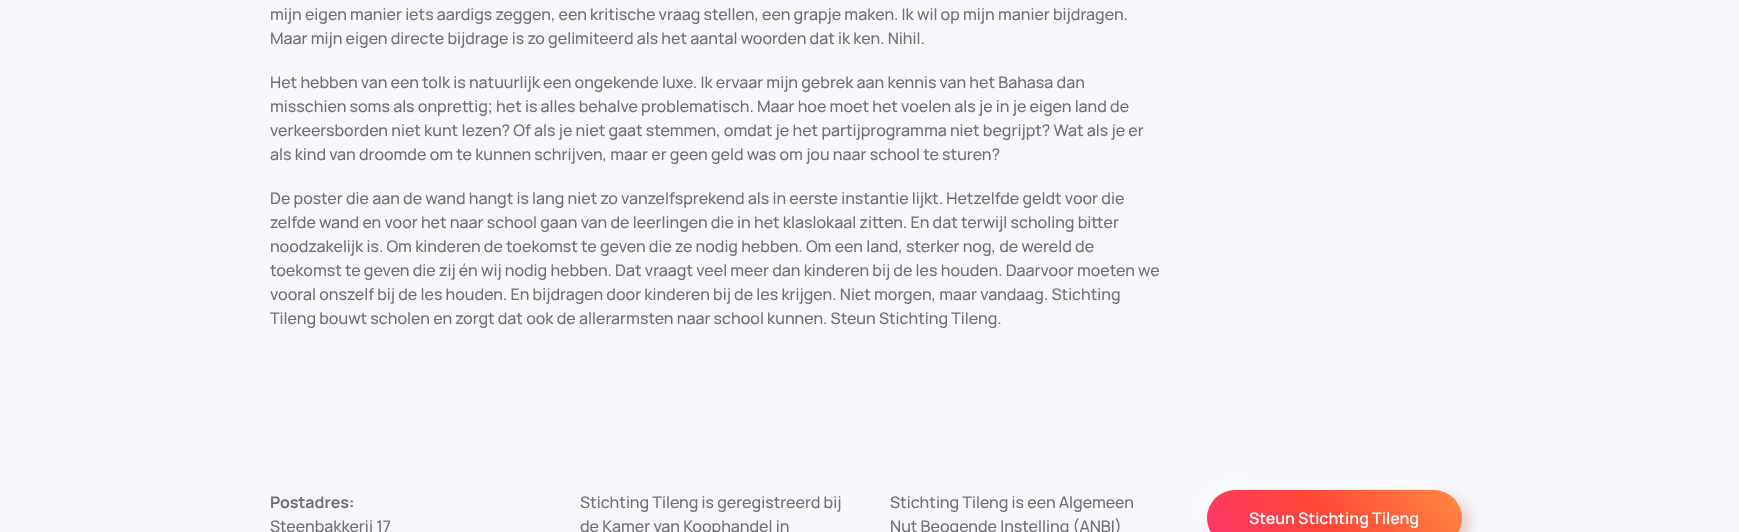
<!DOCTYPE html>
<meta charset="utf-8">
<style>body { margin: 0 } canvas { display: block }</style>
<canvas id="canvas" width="1739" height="532"></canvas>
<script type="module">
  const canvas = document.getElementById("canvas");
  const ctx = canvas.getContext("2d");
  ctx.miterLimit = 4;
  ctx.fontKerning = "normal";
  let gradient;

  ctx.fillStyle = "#f7f8fc";
  ctx.fillRect(0, 0, 1739, 532);
  ctx.font = "200 16px Manrope";
  ctx.fillStyle = "#6d6f72";
  ctx.fillText("mijn eigen manier iets aardigs zeggen, een kritische vraag stellen, een grapje maken. Ik wil op mijn manier bijdragen.", 270, 20);
  ctx.fillText("Maar mijn eigen directe bijdrage is zo gelimiteerd als het aantal woorden dat ik ken. Nihil.", 270, 44);
  ctx.fillText("Het hebben van een tolk is natuurlijk een ongekende luxe. Ik ervaar mijn gebrek aan kennis van het Bahasa dan", 270, 88);
  ctx.fillText("misschien soms als onprettig; het is alles behalve problematisch. Maar hoe moet het voelen als je in je eigen land de", 270, 112);
  ctx.fillText("verkeersborden niet kunt lezen? Of als je niet gaat stemmen, omdat je het partijprogramma niet begrijpt? Wat als je er", 270, 136);
  ctx.fillText("als kind van droomde om te kunnen schrijven, maar er geen geld was om jou naar school te sturen?", 270, 160);
  ctx.fillText("De poster die aan de wand hangt is lang niet zo vanzelfsprekend als in eerste instantie lijkt. Hetzelfde geldt voor die", 270, 204);
  ctx.fillText("zelfde wand en voor het naar school gaan van de leerlingen die in het klaslokaal zitten. En dat terwijl scholing bitter", 270, 228);
  ctx.fillText("noodzakelijk is. Om kinderen de toekomst te geven die ze nodig hebben. Om een land, sterker nog, de wereld de", 270, 252);
  ctx.fillText("toekomst te geven die zij én wij nodig hebben. Dat vraagt veel meer dan kinderen bij de les houden. Daarvoor moeten we", 270, 276);
  ctx.fillText("vooral onszelf bij de les houden. En bijdragen door kinderen bij de les krijgen. Niet morgen, maar vandaag. Stichting", 270, 300);
  ctx.fillText("Tileng bouwt scholen en zorgt dat ook de allerarmsten naar school kunnen. Steun Stichting Tileng.", 270, 324);
  ctx.font = "200 16px 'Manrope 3'";
  ctx.fillText("Postadres:", 270, 508);
  ctx.font = "200 16px Manrope";
  ctx.fillText("Steenbakkerij 17", 270, 532);
  ctx.fillText("Stichting Tileng is geregistreerd bij", 580, 508);
  ctx.fillText("de Kamer van Koophandel in", 580, 532);
  ctx.fillText("Stichting Tileng is een Algemeen", 890, 508);
  ctx.fillText("Nut Beogende Instelling (ANBI)", 890, 532);
  ctx.fillStyle = "rgba(163, 39, 0, 0.3)";
  ctx.filter = "blur(7.5px)";
  ctx.beginPath();
  ctx.roundRect(1212, 495, 255, 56, 28);
  ctx.fill();
  ctx.filter = "none";
  ctx.fillStyle = "rgba(255, 255, 255, 0.9)";
  ctx.filter = "blur(7.5px)";
  ctx.beginPath();
  ctx.roundRect(1202, 485, 255, 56, 28);
  ctx.fill();
  ctx.filter = "none";
  gradient = ctx.createLinearGradient(1039, 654, 1375, 382);
  gradient.addColorStop(0.5, "#fe3966");
  gradient.addColorStop(0.7, "#ff4538");
  gradient.addColorStop(1, "#ff8a42");
  ctx.fillStyle = gradient;
  ctx.beginPath();
  ctx.roundRect(1207, 490, 255, 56, 28);
  ctx.fill();
  ctx.font = "200 16px 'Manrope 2'";
  ctx.fillStyle = "#ffffff";
  ctx.fillText("Steun Stichting Tileng", 1249, 524);
</script>
